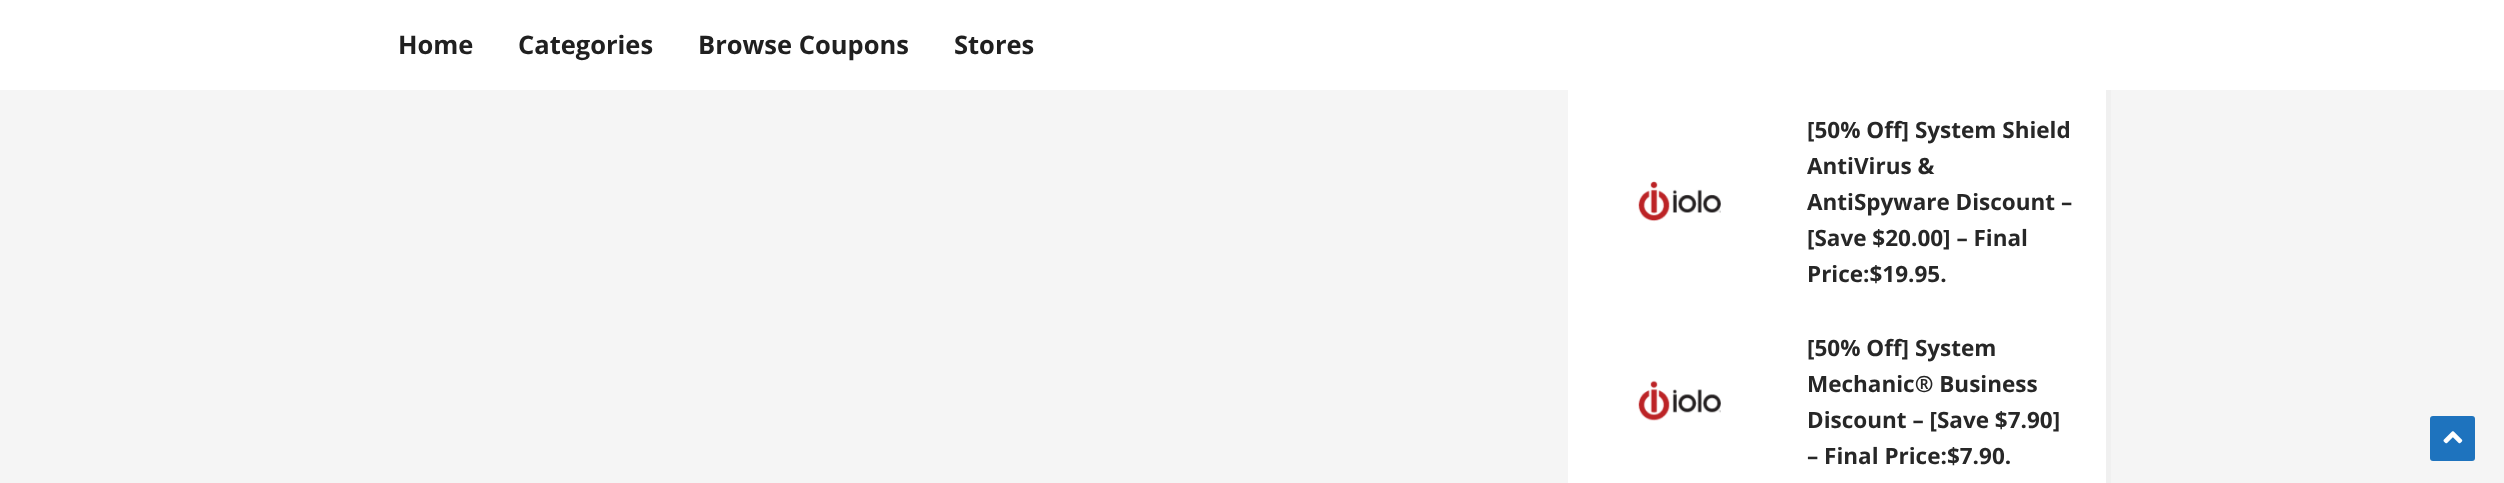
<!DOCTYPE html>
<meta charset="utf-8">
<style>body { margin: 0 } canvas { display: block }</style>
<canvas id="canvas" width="2504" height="483"></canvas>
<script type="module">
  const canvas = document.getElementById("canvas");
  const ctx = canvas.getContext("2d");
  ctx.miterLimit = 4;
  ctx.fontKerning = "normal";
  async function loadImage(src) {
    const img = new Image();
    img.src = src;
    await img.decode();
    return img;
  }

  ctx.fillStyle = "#f5f5f5";
  ctx.fillRect(0, 0, 2504, 483);
  ctx.fillStyle = "#f0f0f0";
  ctx.beginPath();
  ctx.moveTo(1573, 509);
  ctx.bezierCurveTo(1574, 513, 1577, 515, 1581, 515);
  ctx.lineTo(2102, 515);
  ctx.bezierCurveTo(2107, 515, 2111, 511, 2111, 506);
  ctx.lineTo(2111, -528);
  ctx.bezierCurveTo(2111, -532, 2109, -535, 2105, -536);
  ctx.lineTo(2106, -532);
  ctx.lineTo(2106, 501);
  ctx.bezierCurveTo(2106, 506, 2102, 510, 2097, 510);
  ctx.lineTo(1576, 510);
  ctx.closePath();
  ctx.fill();
  ctx.fillStyle = "#ffffff";
  ctx.fillRect(0, 0, 2504, 90);
  ctx.font = "bold 25.5px Open Sans";
  ctx.fillStyle = "#202020";
  ctx.fillText("Home", 398, 54);
  ctx.fillText("Categories", 518, 54);
  ctx.fillText("Browse Coupons", 698, 54);
  ctx.fillText("Stores", 954, 54);
  ctx.fillStyle = "#ffffff";
  ctx.fillRect(1568, 90, 538, 393);
  ctx.drawImage(await loadImage("img1.png"), 1638, 181, 83, 41);
  ctx.font = "bold 22.5px Open Sans";
  ctx.fillStyle = "#272727";
  ctx.fillText("[50% Off] System Shield", 1807, 138);
  ctx.fillText("AntiVirus &", 1807, 174);
  ctx.fillText("AntiSpyware Discount –", 1807, 210);
  ctx.fillText("[Save $20.00] – Final", 1807, 246);
  ctx.fillText("Price:$19.95.", 1807, 282);
  ctx.drawImage(await loadImage("img2.png"), 1638, 380, 83, 41);
  ctx.fillText("[50% Off] System", 1807, 356);
  ctx.fillText("Mechanic® Business", 1807, 392);
  ctx.fillText("Discount – [Save $7.90]", 1807, 428);
  ctx.fillText("– Final Price:$7.90.", 1807, 464);
  ctx.fillStyle = "#1e73be";
  ctx.beginPath();
  ctx.roundRect(2430, 416, 45, 45, 3);
  ctx.fill();
  ctx.drawImage(await loadImage("img3.png"), 2443, 431, 20, 13);
</script>
